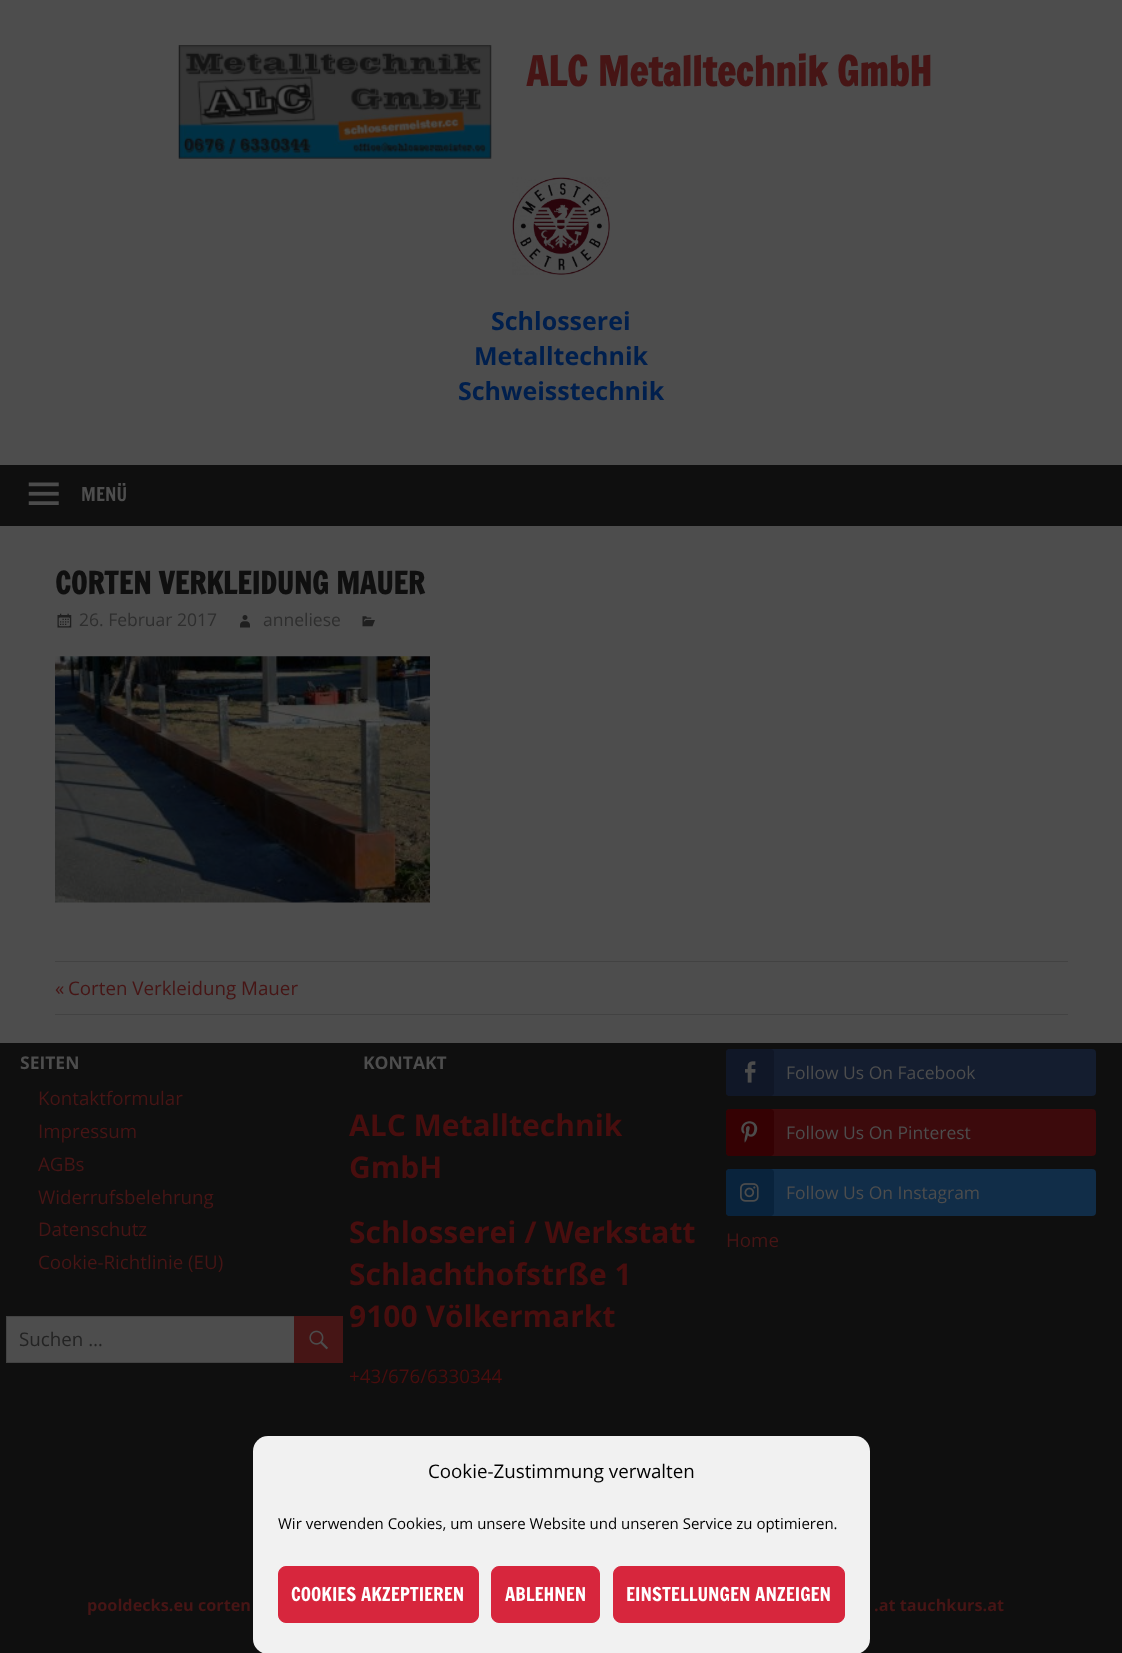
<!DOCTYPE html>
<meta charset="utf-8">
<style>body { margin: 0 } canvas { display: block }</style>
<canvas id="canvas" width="1122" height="1653"></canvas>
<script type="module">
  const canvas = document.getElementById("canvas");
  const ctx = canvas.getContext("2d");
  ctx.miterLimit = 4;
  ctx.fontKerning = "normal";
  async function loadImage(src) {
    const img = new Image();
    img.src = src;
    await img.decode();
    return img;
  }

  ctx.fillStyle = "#4d4d4d";
  ctx.fillRect(0, 0, 1122, 1653);
  ctx.drawImage(await loadImage("img1.png"), 178, 45, 314, 114);
  ctx.font = "bold 40px Francois One";
  ctx.fillStyle = "#461515";
  ctx.fillText("ALC Metalltechnik GmbH", 526, 86);
  ctx.drawImage(await loadImage("img2.png"), 512, 177, 98, 98);
  ctx.font = "bold 25px Open Sans";
  ctx.fillStyle = "#001f4d";
  ctx.fillText("Schlosserei", 491, 330);
  ctx.fillText("Metalltechnik", 474, 365);
  ctx.fillText("Schweisstechnik", 458, 400);
  ctx.fillStyle = "#0f0f0f";
  ctx.fillRect(0, 465, 1122, 61);
  ctx.drawImage(await loadImage("img3.png"), 28, 482, 31, 23);
  ctx.font = "18.75px Francois One";
  ctx.fillStyle = "#4d4d4d";
  ctx.fillText("MENÜ", 81, 501);
  ctx.font = "bold 30px Francois One";
  ctx.fillStyle = "#0f0f0f";
  ctx.fillText("CORTEN VERKLEIDUNG MAUER", 55, 594);
  ctx.drawImage(await loadImage("img4.png"), 57, 613, 15, 15);
  ctx.font = "17.5px Open Sans";
  ctx.fillStyle = "#2e2e2e";
  ctx.fillText("26. Februar 2017", 79, 626);
  ctx.drawImage(await loadImage("img5.png"), 240, 615, 10, 13);
  ctx.fillText("anneliese", 263, 626);
  ctx.drawImage(await loadImage("img6.png"), 362, 616, 13, 11);
  ctx.drawImage(await loadImage("img7.png"), 55, 656, 375, 247);
  ctx.fillStyle = "#424242";
  ctx.fillRect(55, 961, 1013, 1);
  ctx.fillRect(55, 1014, 1013, 1);
  ctx.font = "18.75px Open Sans";
  ctx.fillStyle = "#461515";
  ctx.fillText("«", 55, 995);
  ctx.fillText("Corten Verkleidung Mauer", 68, 995);
  ctx.fillStyle = "#0f0f0f";
  ctx.fillRect(0, 1043, 1122, 610);
  ctx.font = "bold 17.5px Open Sans";
  ctx.fillStyle = "#4d4d4d";
  ctx.fillText("SEITEN", 20, 1069);
  ctx.font = "18.75px Open Sans";
  ctx.fillStyle = "#461515";
  ctx.fillText("Kontaktformular", 38, 1105);
  ctx.fillText("Impressum", 38, 1138);
  ctx.fillText("AGBs", 38, 1171);
  ctx.fillText("Widerrufsbelehrung", 38, 1204);
  ctx.fillText("Datenschutz", 38, 1236);
  ctx.fillText("Cookie-Richtlinie (EU)", 38, 1269);
  ctx.fillStyle = "#4d4d4d";
  ctx.fillRect(7, 1317, 287, 45);
  ctx.strokeStyle = "#424242";
  ctx.strokeRect(6.5, 1316.5, 336, 46);
  ctx.fillStyle = "#232323";
  ctx.fillText("Suchen …", 19, 1346);
  ctx.fillStyle = "#461515";
  ctx.fillRect(294, 1316, 49, 47);
  ctx.drawImage(await loadImage("img8.png"), 309, 1330, 19, 20);
  ctx.font = "bold 17.5px Open Sans";
  ctx.fillStyle = "#4d4d4d";
  ctx.fillText("KONTAKT", 363, 1069);
  ctx.font = "bold 30px Open Sans";
  ctx.fillStyle = "#480e0e";
  ctx.fillText("ALC Metalltechnik", 349, 1136);
  ctx.fillText("GmbH", 349, 1178);
  ctx.fillText("Schlosserei / Werkstatt", 349, 1243);
  ctx.fillText("Schlachthofstrße 1", 349, 1285);
  ctx.fillText("9100 Völkermarkt", 349, 1327);
  ctx.font = "18.75px Open Sans";
  ctx.fillText("+43/676/6330344", 349, 1383);
  ctx.fillStyle = "#141d2f";
  ctx.beginPath();
  ctx.roundRect(726, 1049, 370, 47, 4);
  ctx.fill();
  ctx.fillStyle = "#101727";
  ctx.beginPath();
  ctx.roundRect(726, 1049, 48, 47, 4);
  ctx.fill();
  ctx.drawImage(await loadImage("img9.png"), 745, 1061, 11, 22);
  ctx.font = "17.5px Open Sans";
  ctx.fillStyle = "#4d4d4d";
  ctx.fillText("Follow Us On Facebook", 786, 1079);
  ctx.fillStyle = "#3c0a0c";
  ctx.beginPath();
  ctx.roundRect(726, 1109, 370, 47, 4);
  ctx.fill();
  ctx.fillStyle = "#350103";
  ctx.beginPath();
  ctx.roundRect(726, 1109, 48, 47, 4);
  ctx.fill();
  ctx.drawImage(await loadImage("img10.png"), 741, 1121, 17, 22);
  ctx.fillStyle = "#4d4d4d";
  ctx.fillText("Follow Us On Pinterest", 786, 1139);
  ctx.fillStyle = "#112d48";
  ctx.beginPath();
  ctx.roundRect(726, 1169, 370, 47, 4);
  ctx.fill();
  ctx.fillStyle = "#09233c";
  ctx.beginPath();
  ctx.roundRect(726, 1169, 48, 47, 4);
  ctx.fill();
  ctx.drawImage(await loadImage("img11.png"), 740, 1183, 19, 19);
  ctx.fillStyle = "#4d4d4d";
  ctx.fillText("Follow Us On Instagram", 786, 1199);
  ctx.font = "18.75px Open Sans";
  ctx.fillStyle = "#461515";
  ctx.fillText("Home", 726, 1247);
  ctx.font = "bold 16.25px Open Sans";
  ctx.fillText("pooldecks.eu corten", 87, 1611);
  ctx.fillText(".at tauchkurs.at", 874, 1611);
  ctx.fillStyle = "#f1f1f1";
  ctx.beginPath();
  ctx.roundRect(253, 1436, 617, 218, 15);
  ctx.fill();
  ctx.font = "18.75px Open Sans";
  ctx.fillStyle = "#000000";
  ctx.fillText("Cookie-Zustimmung verwalten", 428, 1478);
  ctx.font = "15px Open Sans";
  ctx.fillText("Wir verwenden Cookies, um unsere Website und unseren Service zu optimieren.", 278, 1529);
  ctx.fillStyle = "#d7263d";
  ctx.beginPath();
  ctx.roundRect(278.5, 1566.5, 200, 56, 7.5);
  ctx.fill();
  ctx.strokeStyle = "#d7263d";
  ctx.stroke();
  ctx.font = "18.75px Francois One";
  ctx.fillStyle = "#ffffff";
  ctx.fillText("COOKIES AKZEPTIEREN", 291, 1601);
  ctx.fillStyle = "#d7263d";
  ctx.beginPath();
  ctx.roundRect(491.5, 1566.5, 108, 56, 7.5);
  ctx.fill();
  ctx.stroke();
  ctx.fillStyle = "#ffffff";
  ctx.fillText("ABLEHNEN", 505, 1601);
  ctx.fillStyle = "#d7263d";
  ctx.beginPath();
  ctx.roundRect(613.5, 1566.5, 231, 56, 7.5);
  ctx.fill();
  ctx.stroke();
  ctx.fillStyle = "#ffffff";
  ctx.fillText("EINSTELLUNGEN ANZEIGEN", 626, 1601);
</script>
